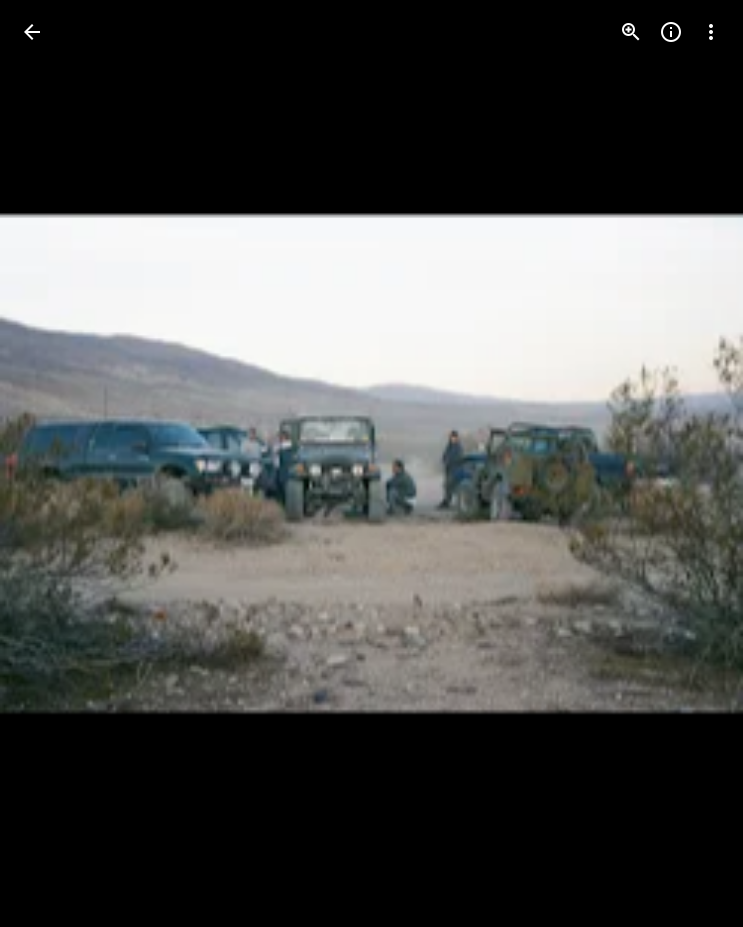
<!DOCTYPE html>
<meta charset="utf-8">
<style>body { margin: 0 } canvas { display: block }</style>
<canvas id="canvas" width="743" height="927"></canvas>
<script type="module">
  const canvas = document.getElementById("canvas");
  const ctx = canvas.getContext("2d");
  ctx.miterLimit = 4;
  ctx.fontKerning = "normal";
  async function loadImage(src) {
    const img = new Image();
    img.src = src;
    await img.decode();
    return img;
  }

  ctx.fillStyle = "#000000";
  ctx.fillRect(0, 0, 743, 927);
  ctx.drawImage(await loadImage("img1.png"), 24, 24, 16, 16);
  ctx.drawImage(await loadImage("img2.png"), 622, 23, 18, 18);
  ctx.drawImage(await loadImage("img3.png"), 661, 22, 20, 20);
  ctx.drawImage(await loadImage("img4.png"), 709, 24, 4, 16);
  ctx.drawImage(await loadImage("img5.png"), 0, 213, 743, 502);
</script>
